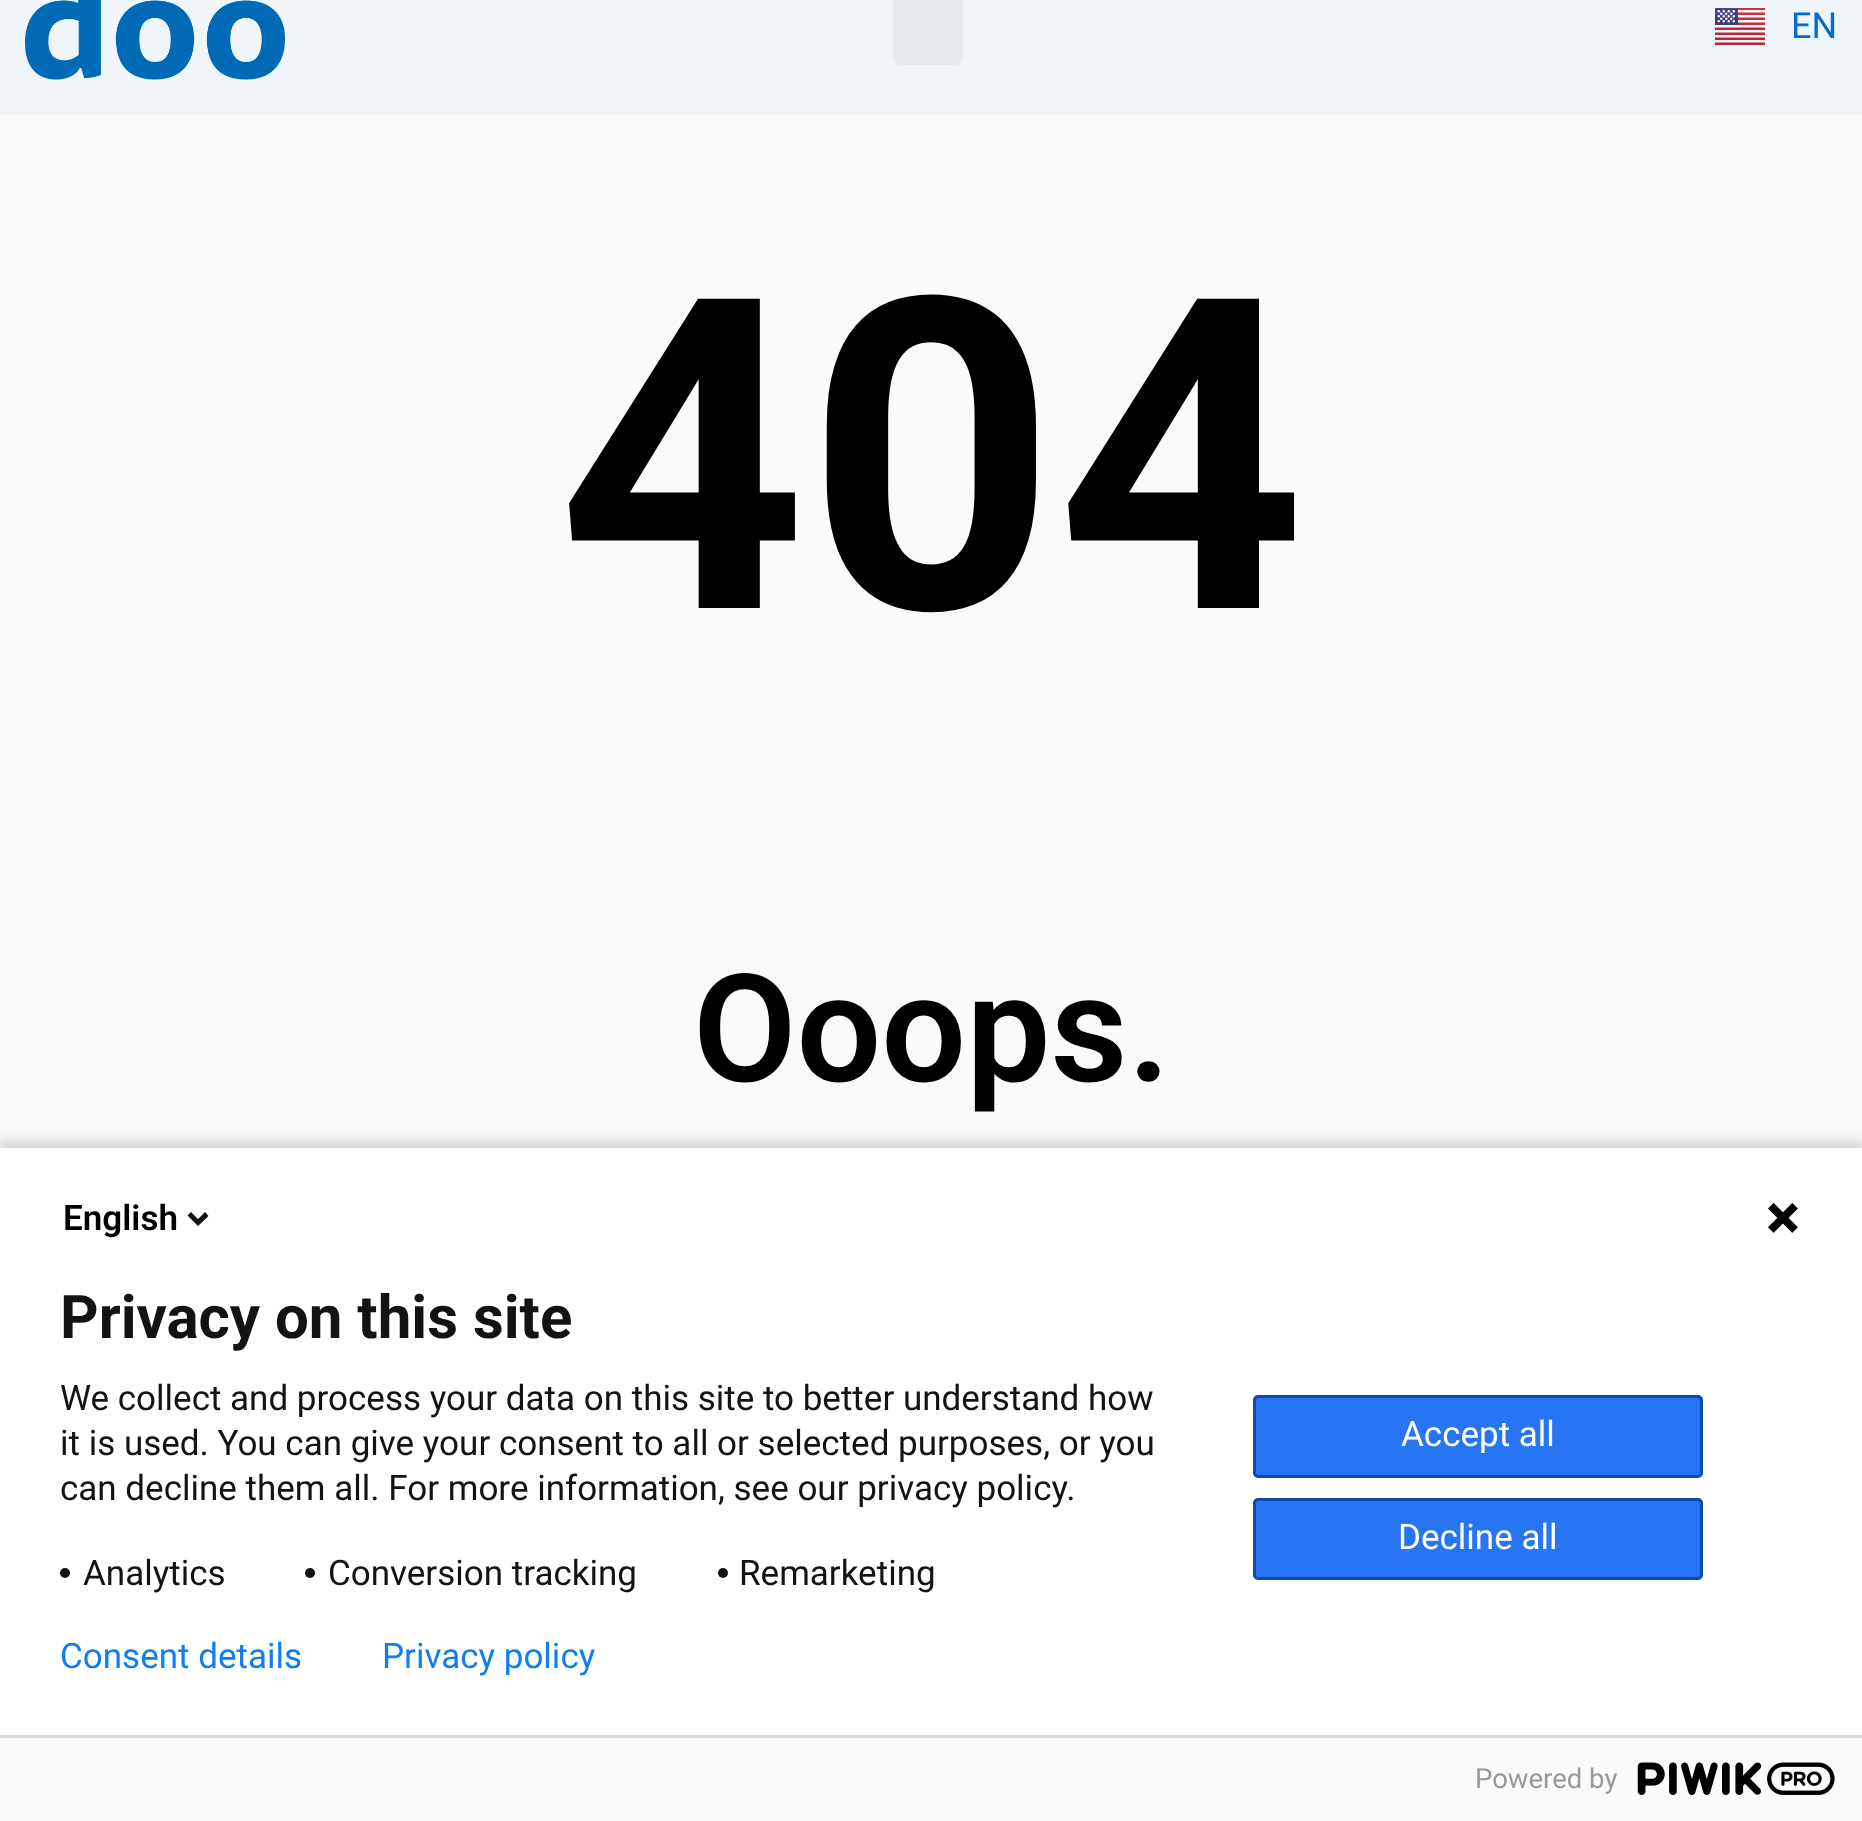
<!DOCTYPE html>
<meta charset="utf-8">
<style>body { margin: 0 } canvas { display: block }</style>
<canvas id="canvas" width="1862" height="1821"></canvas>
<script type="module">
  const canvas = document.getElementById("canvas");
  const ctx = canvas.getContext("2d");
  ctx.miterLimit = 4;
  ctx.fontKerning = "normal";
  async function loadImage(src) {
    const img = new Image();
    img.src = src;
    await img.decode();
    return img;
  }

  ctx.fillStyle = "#f0f5fa";
  ctx.fillRect(0, 0, 1862, 1821);
  ctx.drawImage(await loadImage("img1.png"), 25, 0, 260, 80);
  ctx.fillStyle = "#e4e9ee";
  ctx.beginPath();
  ctx.roundRect(893, -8, 70, 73, 8);
  ctx.fill();
  ctx.drawImage(await loadImage("img2.png"), 1715, 8, 50, 37);
  ctx.font = "36px Roboto";
  ctx.fillStyle = "#046bd2";
  ctx.fillText("EN", 1791, 38);
  ctx.fillStyle = "#fafafa";
  ctx.fillRect(0, 115, 1862, 1033);
  ctx.font = "bold 435px Roboto";
  ctx.fillStyle = "#000000";
  ctx.fillText("404", 557, 608);
  ctx.font = "600 150px Roboto";
  ctx.fillText("Ooops.", 693, 1081);
  ctx.fillStyle = "rgba(0, 0, 0, 0.14)";
  ctx.filter = "blur(6px)";
  ctx.beginPath();
  ctx.rect(-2, 1140, 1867, 680);
  ctx.fill();
  ctx.filter = "none";
  ctx.fillStyle = "#ffffff";
  ctx.fillRect(0, 1148, 1862, 587);
  ctx.font = "600 35px Roboto";
  ctx.fillStyle = "#000000";
  ctx.fillText("English", 63, 1230);
  ctx.fillStyle = "#131313";
  ctx.beginPath();
  ctx.moveTo(198, 1219);
  ctx.lineTo(205, 1212);
  ctx.lineTo(208.5, 1216);
  ctx.lineTo(198, 1226);
  ctx.lineTo(187.5, 1215.5);
  ctx.lineTo(191, 1212);
  ctx.closePath();
  ctx.fill();
  ctx.drawImage(await loadImage("img3.png"), 1768, 1203, 30, 30);
  ctx.font = "bold 60px Roboto";
  ctx.fillText("Privacy on this site", 60, 1338);
  ctx.font = "35px Roboto";
  ctx.fillText("We collect and process your data on this site to better understand how", 60, 1410);
  ctx.fillText("it is used. You can give your consent to all or selected purposes, or you", 60, 1455);
  ctx.fillText("can decline them all. For more information, see our privacy policy.", 60, 1500);
  ctx.beginPath();
  ctx.arc(65, 1573, 5, 0, Math.PI * 2);
  ctx.fill();
  ctx.fillText("Analytics", 83, 1585);
  ctx.beginPath();
  ctx.arc(310, 1573, 5, 0, Math.PI * 2);
  ctx.fill();
  ctx.fillText("Conversion tracking", 328, 1585);
  ctx.beginPath();
  ctx.arc(723, 1573, 5, 0, Math.PI * 2);
  ctx.fill();
  ctx.fillText("Remarketing", 739, 1585);
  ctx.fillStyle = "#2775f2";
  ctx.beginPath();
  ctx.roundRect(1254.5, 1396.5, 447, 80, 3.5);
  ctx.fill();
  ctx.strokeStyle = "#0b4bb3";
  ctx.lineWidth = 3;
  ctx.stroke();
  ctx.fillStyle = "#ffffff";
  ctx.fillText("Accept all", 1401, 1446);
  ctx.fillStyle = "#2775f2";
  ctx.beginPath();
  ctx.roundRect(1254.5, 1499.5, 447, 79, 3.5);
  ctx.fill();
  ctx.stroke();
  ctx.fillStyle = "#ffffff";
  ctx.fillText("Decline all", 1398, 1549);
  ctx.fillStyle = "#107ef1";
  ctx.fillText("Consent details", 60, 1668);
  ctx.fillText("Privacy policy", 382, 1668);
  ctx.fillStyle = "#fafafa";
  ctx.fillRect(0, 1738, 1862, 83);
  ctx.fillStyle = "#dddddd";
  ctx.fillRect(0, 1735, 1862, 3);
  ctx.font = "27.5px Roboto";
  ctx.fillStyle = "#999999";
  ctx.fillText("Powered by", 1475, 1788);
  ctx.drawImage(await loadImage("img4.png"), 1637, 1762, 198, 33);
</script>
